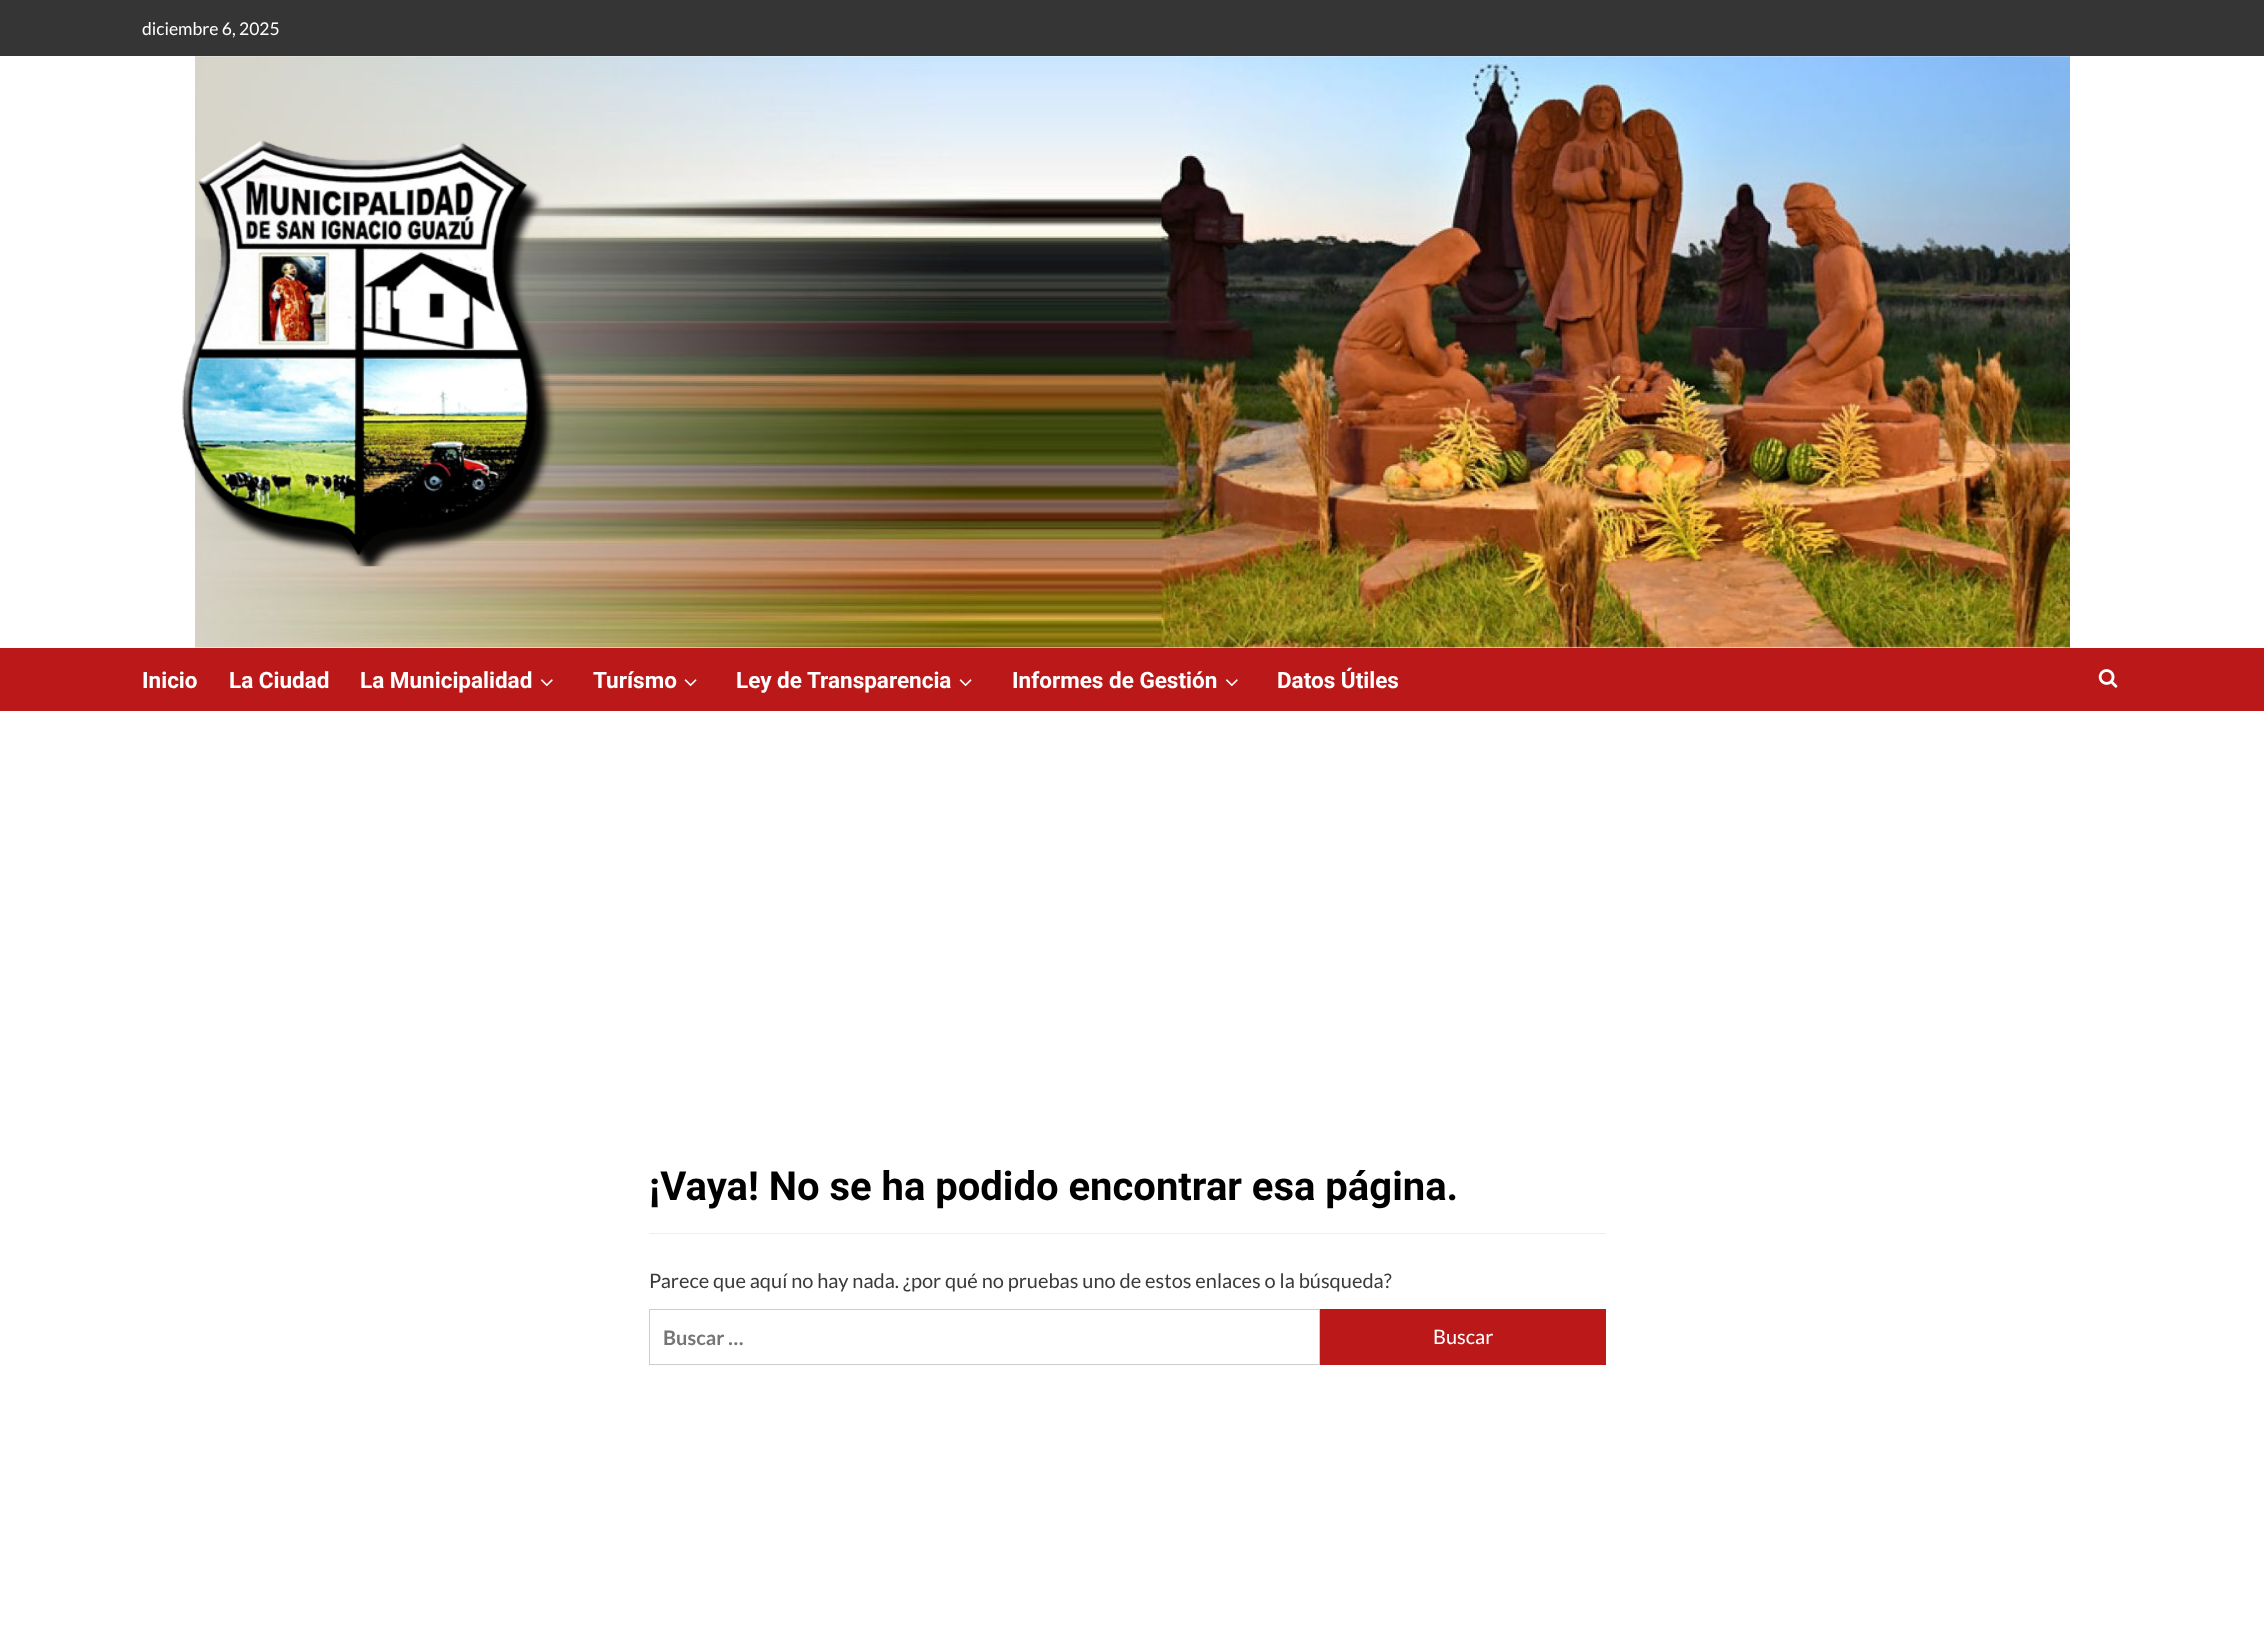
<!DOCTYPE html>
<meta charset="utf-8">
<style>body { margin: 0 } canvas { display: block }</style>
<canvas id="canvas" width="2264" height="1648"></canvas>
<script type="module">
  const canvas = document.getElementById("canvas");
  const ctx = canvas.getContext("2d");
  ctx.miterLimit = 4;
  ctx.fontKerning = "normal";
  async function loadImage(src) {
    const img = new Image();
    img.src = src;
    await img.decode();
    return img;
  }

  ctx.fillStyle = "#ffffff";
  ctx.fillRect(0, 0, 2264, 1648);
  ctx.fillStyle = "#353535";
  ctx.fillRect(0, 0, 2264, 56);
  ctx.font = "17.5px Lato";
  ctx.fillStyle = "#ffffff";
  ctx.fillText("diciembre 6, 2025", 142, 35);
  ctx.drawImage(await loadImage("img1.png"), 195, 56, 1875, 592);
  ctx.drawImage(await loadImage("img2.png"), 182, 140, 373, 427);
  ctx.fillStyle = "#bb1919";
  ctx.fillRect(0, 648, 2264, 63);
  ctx.font = "bold 22.5px Roboto";
  ctx.fillStyle = "#ffffff";
  ctx.fillText("Inicio", 142, 688);
  ctx.fillText("La Ciudad", 229, 688);
  ctx.fillText("La Municipalidad", 360, 688);
  ctx.drawImage(await loadImage("img3.png"), 540, 679, 13, 8);
  ctx.fillText("Turísmo", 593, 688);
  ctx.drawImage(await loadImage("img4.png"), 684, 679, 13, 8);
  ctx.fillText("Ley de Transparencia", 736, 688);
  ctx.drawImage(await loadImage("img4.png"), 959, 679, 13, 8);
  ctx.fillText("Informes de Gestión", 1012, 688);
  ctx.drawImage(await loadImage("img3.png"), 1225, 679, 13, 8);
  ctx.fillText("Datos Útiles", 1277, 688);
  ctx.drawImage(await loadImage("img5.png"), 2098, 669, 20, 19);
  ctx.fillStyle = "#eeeeee";
  ctx.fillRect(649, 1233, 957, 1);
  ctx.font = "bold 40px Roboto";
  ctx.fillStyle = "#000000";
  ctx.fillText("¡Vaya! No se ha podido encontrar esa página.", 649, 1200);
  ctx.font = "20px Lato";
  ctx.fillStyle = "#3a3a3a";
  ctx.fillText("Parece que aquí no hay nada. ¿por qué no pruebas uno de estos enlaces o la búsqueda?", 649, 1288);
  ctx.strokeStyle = "#cccccc";
  ctx.strokeRect(649.5, 1309.5, 670, 55);
  ctx.font = "bold 20px Lato";
  ctx.fillStyle = "#757575";
  ctx.fillText("Buscar …", 663, 1345);
  ctx.fillStyle = "#bb1919";
  ctx.fillRect(1320, 1309, 286, 56);
  ctx.font = "20px Lato";
  ctx.fillStyle = "#ffffff";
  ctx.fillText("Buscar", 1433, 1344);
</script>
